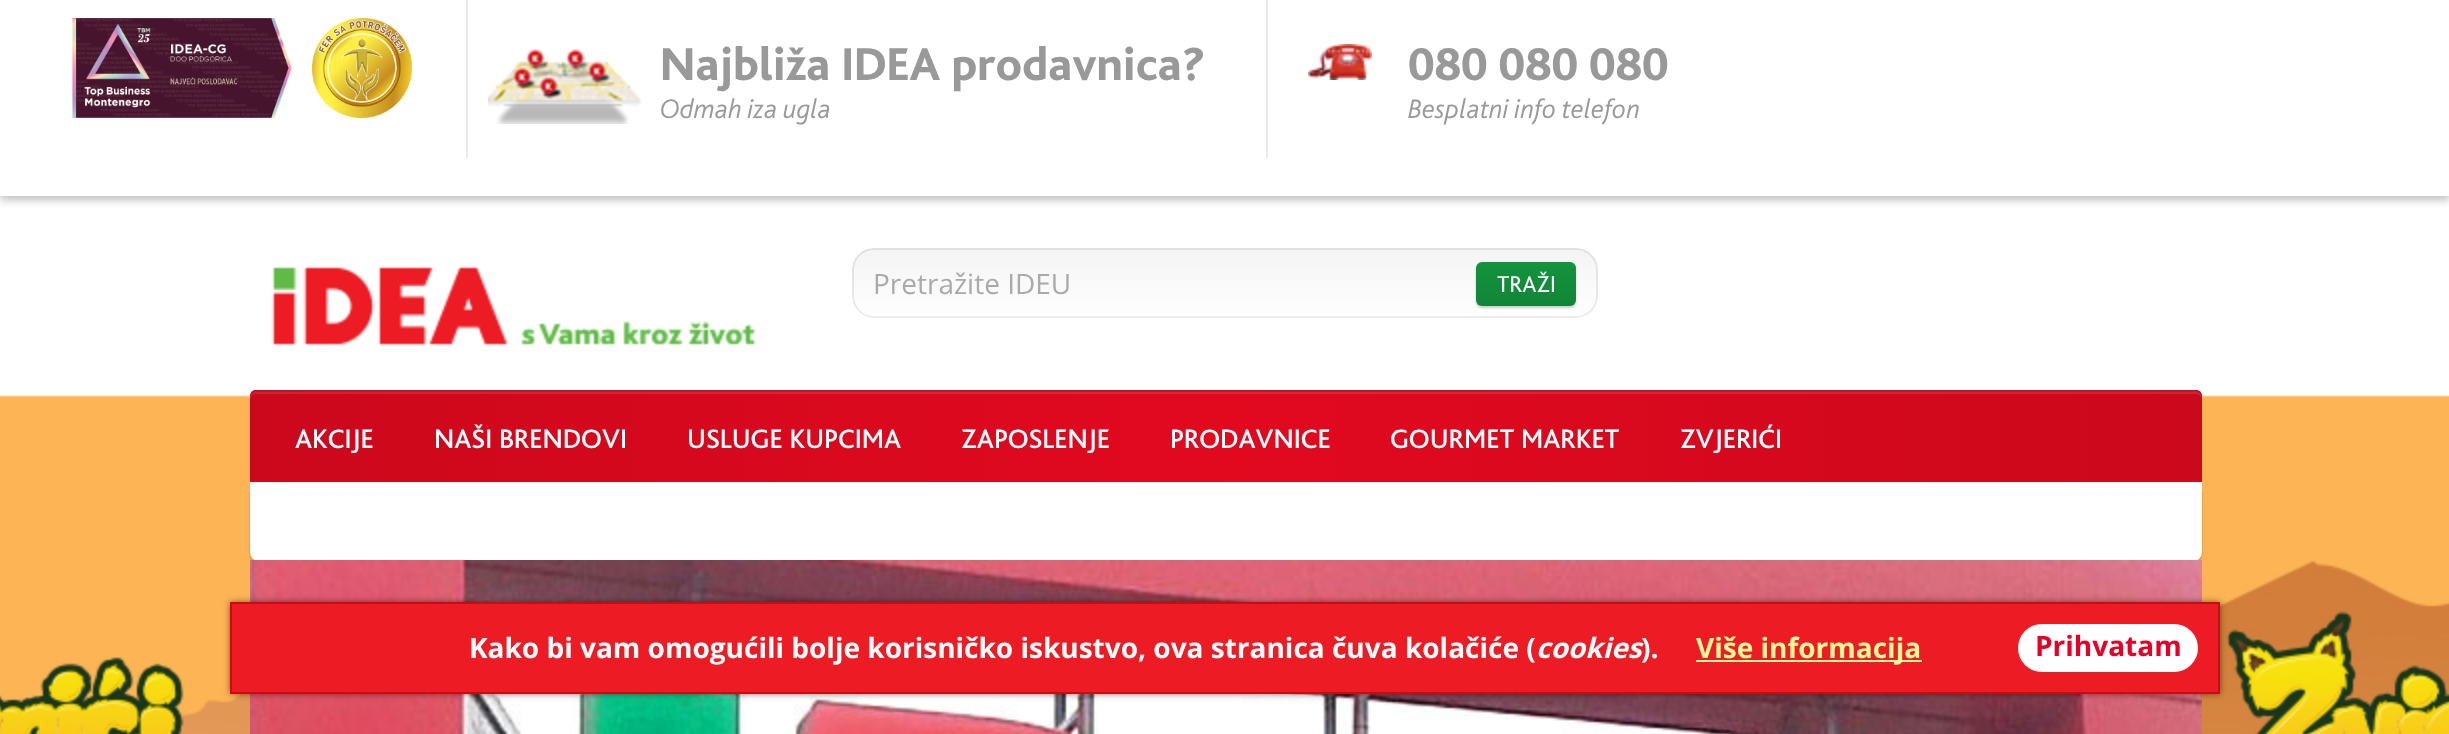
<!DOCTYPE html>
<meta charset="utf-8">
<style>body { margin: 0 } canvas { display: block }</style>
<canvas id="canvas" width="2449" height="734"></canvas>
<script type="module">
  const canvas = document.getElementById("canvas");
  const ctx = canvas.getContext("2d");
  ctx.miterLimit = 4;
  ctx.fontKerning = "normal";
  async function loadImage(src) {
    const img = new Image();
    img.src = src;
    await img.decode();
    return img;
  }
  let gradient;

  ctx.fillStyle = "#ffffff";
  ctx.fillRect(0, 0, 2449, 734);
  ctx.drawImage(await loadImage("img1.png"), 0, 197, 2449, 537);
  ctx.fillStyle = "rgba(0, 0, 0, 0.25)";
  ctx.filter = "blur(4px)";
  ctx.beginPath();
  ctx.rect(0, 4, 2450, 196);
  ctx.fill();
  ctx.filter = "none";
  ctx.fillStyle = "#ffffff";
  ctx.fillRect(0, 0, 2449, 196);
  ctx.drawImage(await loadImage("img2.png"), 72, 18, 220, 100);
  ctx.drawImage(await loadImage("img3.png"), 312, 18, 100, 100);
  ctx.fillStyle = "#ebe9e5";
  ctx.fillRect(466, 0, 2, 158);
  ctx.drawImage(await loadImage("img4.png"), 488, 48, 154, 76);
  ctx.font = "800 48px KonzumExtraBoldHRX";
  ctx.fillStyle = "#999999";
  ctx.fillText("Najbliža IDEA prodavnica?", 660, 80);
  ctx.font = "italic 300 28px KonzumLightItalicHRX";
  ctx.fillText("Odmah iza ugla", 660, 118);
  ctx.fillStyle = "#ebe9e5";
  ctx.fillRect(1266, 0, 2, 158);
  ctx.drawImage(await loadImage("img5.png"), 1308, 44, 64, 36);
  ctx.font = "800 48px KonzumExtraBoldHRX";
  ctx.fillStyle = "#999999";
  ctx.fillText("080 080 080", 1408, 80);
  ctx.font = "italic 300 28px KonzumLightItalicHRX";
  ctx.fillText("Besplatni info telefon", 1408, 118);
  ctx.drawImage(await loadImage("img6.png"), 271, 266, 485, 80);
  ctx.save();
  ctx.beginPath();
  ctx.roundRect(850, 246, 750, 74, 24);
  ctx.clip();
  gradient = ctx.createLinearGradient(1225, 248, 1225, 318);
  gradient.addColorStop(0, "#f4f4f4");
  gradient.addColorStop(1, "#ffffff");
  ctx.fillStyle = gradient;
  ctx.fillRect(850, 248, 750, 70);
  ctx.restore();
  ctx.beginPath();
  ctx.roundRect(853, 249, 744, 68, 21);
  ctx.strokeStyle = "rgba(0, 0, 0, 0.08)";
  ctx.lineWidth = 2;
  ctx.stroke();
  ctx.beginPath();
  ctx.roundRect(851, 247, 748, 72, 23);
  ctx.strokeStyle = "#ffffff";
  ctx.stroke();
  ctx.font = "28px Open Sans";
  ctx.fillStyle = "#aaaaaa";
  ctx.fillText("Pretražite IDEU", 873, 294);
  ctx.fillStyle = "rgba(0, 0, 0, 0.2)";
  ctx.filter = "blur(1px)";
  ctx.beginPath();
  ctx.roundRect(1476, 264, 100, 44, 6);
  ctx.fill();
  ctx.filter = "none";
  gradient = ctx.createLinearGradient(1526, 262, 1526, 306);
  gradient.addColorStop(0, "#13943d");
  gradient.addColorStop(1, "#118537");
  ctx.fillStyle = gradient;
  ctx.beginPath();
  ctx.roundRect(1476, 262, 100, 44, 6);
  ctx.fill();
  ctx.font = "24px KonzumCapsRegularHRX";
  ctx.fillStyle = "#ffffff";
  ctx.fillText("TRAŽI", 1497, 292);
  gradient = ctx.createLinearGradient(250, 437, 2202, 437);
  gradient.addColorStop(0, "#cc081c");
  gradient.addColorStop(0.5, "#e2091f");
  gradient.addColorStop(1, "#cc081c");
  ctx.fillStyle = gradient;
  ctx.beginPath();
  ctx.roundRect(250, 390, 1952, 94, [6, 6, 0, 0]);
  ctx.fill();
  ctx.fillStyle = "rgba(255, 255, 255, 0.1)";
  ctx.beginPath();
  ctx.moveTo(256, 394);
  ctx.lineTo(2196, 394);
  ctx.bezierCurveTo(2199, 394, 2202, 397, 2202, 400);
  ctx.lineTo(2202, 396);
  ctx.bezierCurveTo(2202, 393, 2199, 390, 2196, 390);
  ctx.lineTo(256, 390);
  ctx.bezierCurveTo(253, 390, 250, 393, 250, 396);
  ctx.lineTo(250, 400);
  ctx.bezierCurveTo(250, 397, 253, 394, 256, 394);
  ctx.closePath();
  ctx.fill();
  ctx.fillStyle = "#be1628";
  ctx.beginPath();
  ctx.moveTo(256, 392);
  ctx.lineTo(2196, 392);
  ctx.bezierCurveTo(2199, 392, 2202, 395, 2202, 398);
  ctx.bezierCurveTo(2202, 394, 2201, 390, 2196, 390);
  ctx.lineTo(256, 390);
  ctx.bezierCurveTo(251, 390, 250, 394, 250, 398);
  ctx.bezierCurveTo(250, 395, 253, 392, 256, 392);
  ctx.closePath();
  ctx.fill();
  ctx.font = "500 28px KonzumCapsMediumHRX";
  ctx.fillStyle = "#ffffff";
  ctx.fillText("AKCIJE", 295, 448);
  ctx.fillText("NAŠI BRENDOVI", 434, 448);
  ctx.fillText("USLUGE KUPCIMA", 687, 448);
  ctx.fillText("ZAPOSLENJE", 961, 448);
  ctx.fillText("PRODAVNICE", 1170, 448);
  ctx.fillText("GOURMET MARKET", 1390, 448);
  ctx.fillText("ZVJERIĆI", 1680, 448);
  ctx.fillStyle = "rgba(0, 0, 0, 0.2)";
  ctx.filter = "blur(1px)";
  ctx.beginPath();
  ctx.roundRect(250, 484, 1952, 80, 10);
  ctx.fill();
  ctx.filter = "none";
  ctx.fillStyle = "#ffffff";
  ctx.beginPath();
  ctx.roundRect(250, 482, 1952, 80, [0, 0, 10, 10]);
  ctx.fill();
  ctx.drawImage(await loadImage("img7.png"), 250, 560, 1952, 174);
  ctx.fillStyle = "rgba(0, 0, 0, 0.5)";
  ctx.filter = "blur(3px)";
  ctx.beginPath();
  ctx.rect(230, 602, 1990, 92);
  ctx.fill();
  ctx.filter = "none";
  ctx.fillStyle = "#ed1b24";
  ctx.beginPath();
  ctx.rect(231, 603, 1988, 90);
  ctx.fill();
  ctx.strokeStyle = "#cd0a10";
  ctx.stroke();
  ctx.font = "bold 28px Open Sans";
  ctx.fillStyle = "#ffffff";
  ctx.fillText("Kako bi vam omogućili bolje korisničko iskustvo, ova stranica čuva kolačiće (", 469, 658);
  ctx.font = "italic bold 28px Open Sans";
  ctx.fillText("cookies", 1536, 658);
  ctx.font = "bold 28px Open Sans";
  ctx.fillText(").", 1641, 658);
  ctx.fillStyle = "#fef898";
  ctx.fillRect(1696, 660, 226, 2);
  ctx.fillText("Više informacija", 1696, 658);
  ctx.fillStyle = "#ffffff";
  ctx.beginPath();
  ctx.roundRect(2018, 624, 180, 48, 24);
  ctx.fill();
  ctx.fillStyle = "#e60028";
  ctx.fillText("Prihvatam", 2035, 656);
</script>
